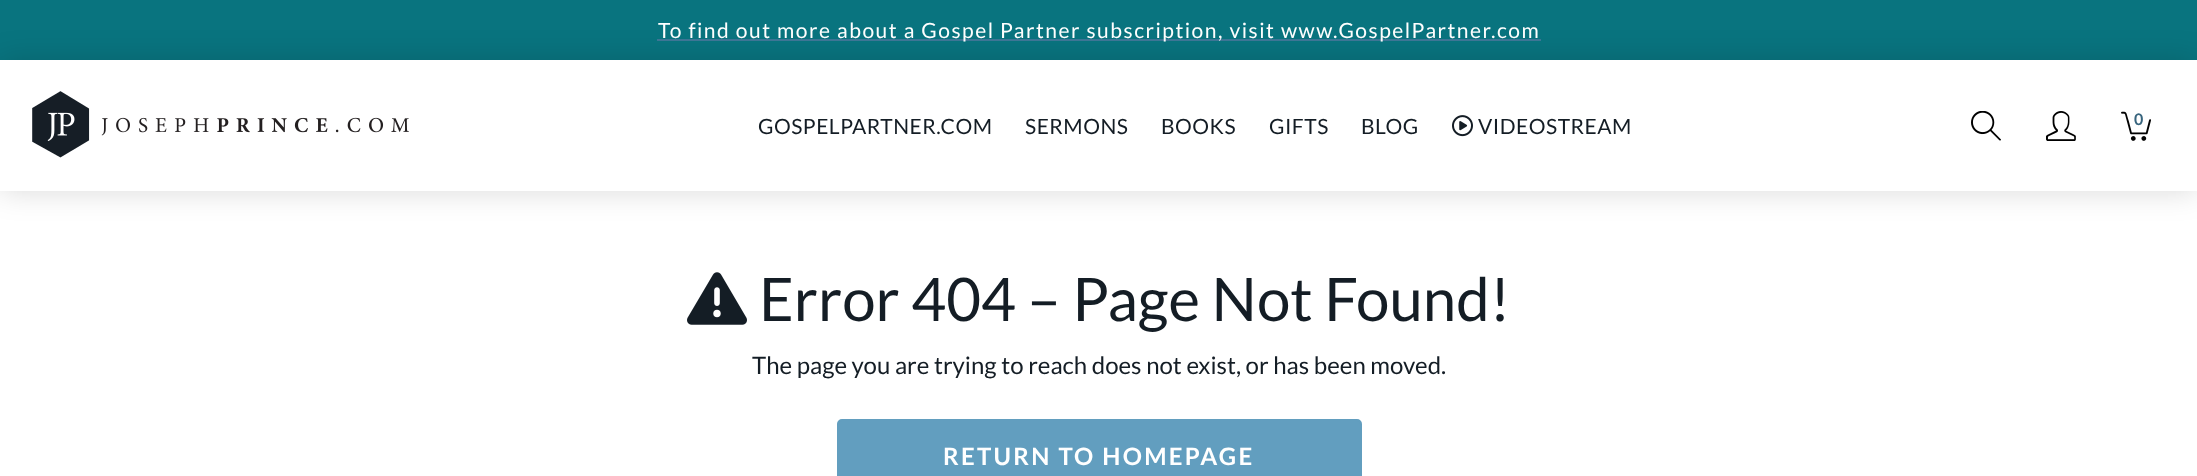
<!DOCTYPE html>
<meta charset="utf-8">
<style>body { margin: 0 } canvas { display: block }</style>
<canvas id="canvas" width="2197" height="476"></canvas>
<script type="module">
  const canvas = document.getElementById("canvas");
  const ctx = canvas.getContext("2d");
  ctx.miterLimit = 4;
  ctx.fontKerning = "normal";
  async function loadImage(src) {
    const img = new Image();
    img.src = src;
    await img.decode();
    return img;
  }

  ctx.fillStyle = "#ffffff";
  ctx.fillRect(0, 0, 2197, 476);
  ctx.fillStyle = "#09747f";
  ctx.fillRect(0, 0, 2197, 60);
  ctx.fillStyle = "#3e7797";
  ctx.fillRect(657, 39, 884, 2);
  ctx.letterSpacing = "1.5px";
  ctx.font = "21px Lato";
  ctx.fillStyle = "#ffffff";
  ctx.fillText("To find out more about a Gospel Partner subscription, visit www.GospelPartner.com", 658, 38);
  ctx.fillStyle = "rgba(0, 0, 0, 0.15)";
  ctx.filter = "blur(15px)";
  ctx.beginPath();
  ctx.rect(0, 60, 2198, 131);
  ctx.fill();
  ctx.filter = "none";
  ctx.fillStyle = "#ffffff";
  ctx.fillRect(0, 60, 2197, 131);
  ctx.drawImage(await loadImage("img1.png"), 32, 91, 377, 67);
  ctx.letterSpacing = "0.5px";
  ctx.fillStyle = "#141d25";
  ctx.fillText("GOSPELPARTNER.COM", 758, 134);
  ctx.fillText("SERMONS", 1025, 134);
  ctx.fillText("BOOKS", 1161, 134);
  ctx.fillText("GIFTS", 1269, 134);
  ctx.fillText("BLOG", 1361, 134);
  ctx.drawImage(await loadImage("img2.png"), 1452, 115, 21, 22);
  ctx.fillText("VIDEOSTREAM", 1478, 134);
  ctx.drawImage(await loadImage("img3.png"), 1971, 111, 30, 30);
  ctx.drawImage(await loadImage("img4.png"), 2046, 111, 30, 30);
  ctx.drawImage(await loadImage("img5.png"), 2121, 111, 30, 30);
  ctx.letterSpacing = "-2px";
  ctx.font = "bold 16px Lato";
  ctx.fillStyle = "#37647d";
  ctx.fillText("0", 2134, 125);
  ctx.drawImage(await loadImage("img6.png"), 687, 272, 60, 53);
  ctx.letterSpacing = "0px";
  ctx.font = "60px Lato";
  ctx.fillStyle = "#141d25";
  ctx.fillText("Error 404 – Page Not Found!", 759, 321);
  ctx.font = "24px Lato";
  ctx.fillText("The page you are trying to reach does not exist, or has been moved.", 752, 374);
  ctx.fillStyle = "#629ebf";
  ctx.beginPath();
  ctx.roundRect(838, 420, 523, 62, 4);
  ctx.fill();
  ctx.strokeStyle = "#629ebf";
  ctx.lineWidth = 2;
  ctx.stroke();
  ctx.letterSpacing = "2.25px";
  ctx.font = "bold 24px Lato";
  ctx.fillStyle = "#ffffff";
  ctx.fillText("RETURN TO HOMEPAGE", 943, 465);
</script>
